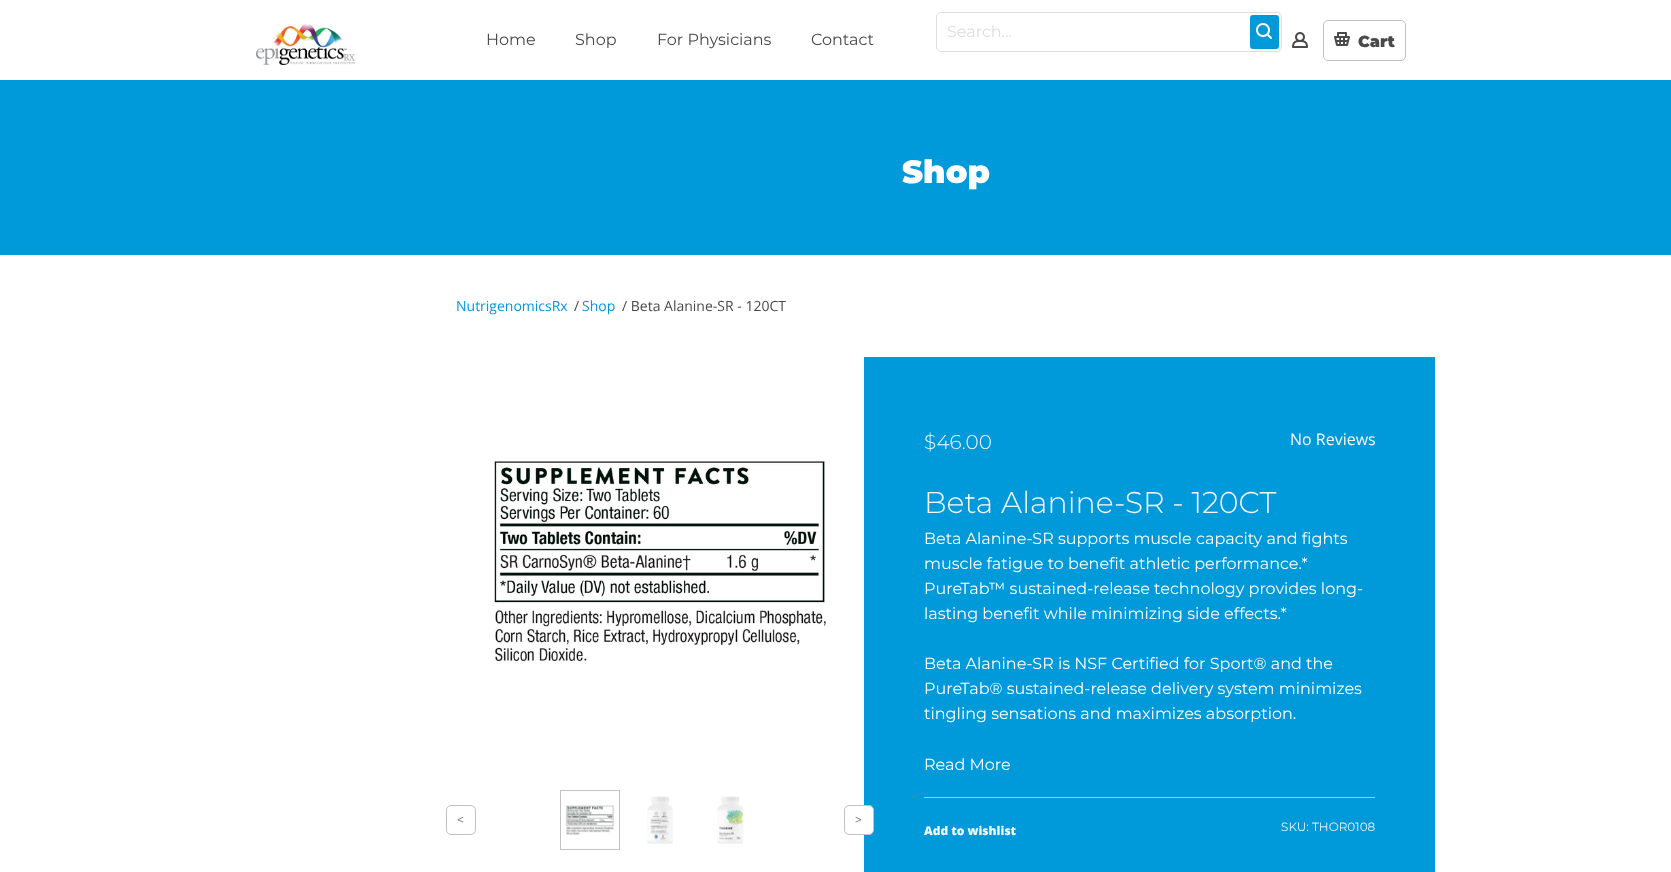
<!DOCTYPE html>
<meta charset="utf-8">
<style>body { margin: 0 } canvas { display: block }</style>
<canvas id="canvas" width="1671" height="872"></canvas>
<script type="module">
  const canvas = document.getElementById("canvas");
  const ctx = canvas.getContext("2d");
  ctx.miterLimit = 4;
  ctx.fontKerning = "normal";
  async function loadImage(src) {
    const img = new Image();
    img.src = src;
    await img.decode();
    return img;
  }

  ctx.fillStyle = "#ffffff";
  ctx.fillRect(0, 0, 1671, 872);
  ctx.drawImage(await loadImage("img1.png"), 256, 24, 99, 41);
  ctx.font = "16px Montserrat";
  ctx.fillStyle = "#4a4a4a";
  ctx.fillText("Home", 486, 45);
  ctx.fillText("Shop", 575, 45);
  ctx.fillText("For Physicians", 657, 45);
  ctx.fillText("Contact", 811, 45);
  ctx.beginPath();
  ctx.roundRect(936.5, 12.5, 345, 39, 4.5);
  ctx.strokeStyle = "#dddddd";
  ctx.stroke();
  ctx.fillStyle = "#dddddd";
  ctx.fillText("Search...", 947, 37);
  ctx.fillStyle = "#0099da";
  ctx.beginPath();
  ctx.roundRect(1250, 15, 29, 34, 3);
  ctx.fill();
  ctx.drawImage(await loadImage("img2.png"), 1256, 23, 16, 16);
  ctx.drawImage(await loadImage("img3.png"), 1292, 32, 16, 16);
  ctx.beginPath();
  ctx.roundRect(1323.5, 20.5, 82, 40, 4.5);
  ctx.strokeStyle = "#c2c2c2";
  ctx.stroke();
  ctx.drawImage(await loadImage("img4.png"), 1334, 32, 16, 14);
  ctx.font = "900 16px Montserrat";
  ctx.fillStyle = "#4a4a4a";
  ctx.fillText("Cart", 1358, 47);
  ctx.fillStyle = "#0099da";
  ctx.fillRect(0, 80, 1671, 175);
  ctx.font = "900 32px Montserrat";
  ctx.fillStyle = "#ffffff";
  ctx.fillText("Shop", 902, 183);
  ctx.font = "14px Open Sans";
  ctx.fillStyle = "#0099da";
  ctx.fillText("NutrigenomicsRx", 456, 311);
  ctx.fillStyle = "#4a4a4a";
  ctx.fillText("/", 574, 311);
  ctx.fillStyle = "#0099da";
  ctx.fillText("Shop", 582, 311);
  ctx.fillStyle = "#4a4a4a";
  ctx.fillText("/ Beta Alanine-SR - 120CT", 622, 311);
  ctx.drawImage(await loadImage("img5.png"), 494, 461, 332, 201);
  ctx.beginPath();
  ctx.roundRect(446.5, 805.5, 29, 29, 4.5);
  ctx.stroke();
  ctx.font = "12px Open Sans";
  ctx.fillStyle = "#626262";
  ctx.fillText("<", 457, 824);
  ctx.strokeRect(560.5, 790.5, 59, 59);
  ctx.drawImage(await loadImage("img6.png"), 565, 805, 50, 30);
  ctx.drawImage(await loadImage("img7.png"), 647, 796, 26, 48);
  ctx.drawImage(await loadImage("img8.png"), 717, 796, 27, 48);
  ctx.fillStyle = "#0099da";
  ctx.fillRect(864, 357, 571, 515);
  ctx.fillStyle = "#ffffff";
  ctx.beginPath();
  ctx.roundRect(844.5, 805.5, 29, 29, 4.5);
  ctx.fill();
  ctx.stroke();
  ctx.fillStyle = "#626262";
  ctx.fillText(">", 855, 824);
  ctx.font = "300 20px Montserrat";
  ctx.fillStyle = "#f7f9fc";
  ctx.fillText("$46.00", 924, 449);
  ctx.font = "16px Open Sans";
  ctx.fillText("No Reviews", 1290, 445);
  ctx.font = "300 30px Montserrat";
  ctx.fillText("Beta Alanine-SR - 120CT", 924, 513);
  ctx.fillStyle = "#9ececc";
  ctx.fillRect(924, 797, 451, 1);
  ctx.font = "16px Montserrat";
  ctx.fillStyle = "#ffffff";
  ctx.fillText("Beta Alanine-SR supports muscle capacity and fights", 924, 544);
  ctx.fillText("muscle fatigue to benefit athletic performance.*", 924, 569);
  ctx.fillText("PureTab™ sustained-release technology provides long-", 924, 594);
  ctx.fillText("lasting benefit while minimizing side effects.*", 924, 619);
  ctx.fillText("Beta Alanine-SR is NSF Certified for Sport® and the", 924, 669);
  ctx.fillText("PureTab® sustained-release delivery system minimizes", 924, 694);
  ctx.fillText("tingling sensations and maximizes absorption.", 924, 719);
  ctx.fillText("Read More", 924, 770);
  ctx.font = "800 12px Open Sans";
  ctx.fillStyle = "#f7f9fc";
  ctx.fillText("Add to wishlist", 924, 835);
  ctx.font = "12px Montserrat";
  ctx.fillStyle = "#e5f0f1";
  ctx.fillText("SKU: THOR0108", 1281, 831);
</script>
